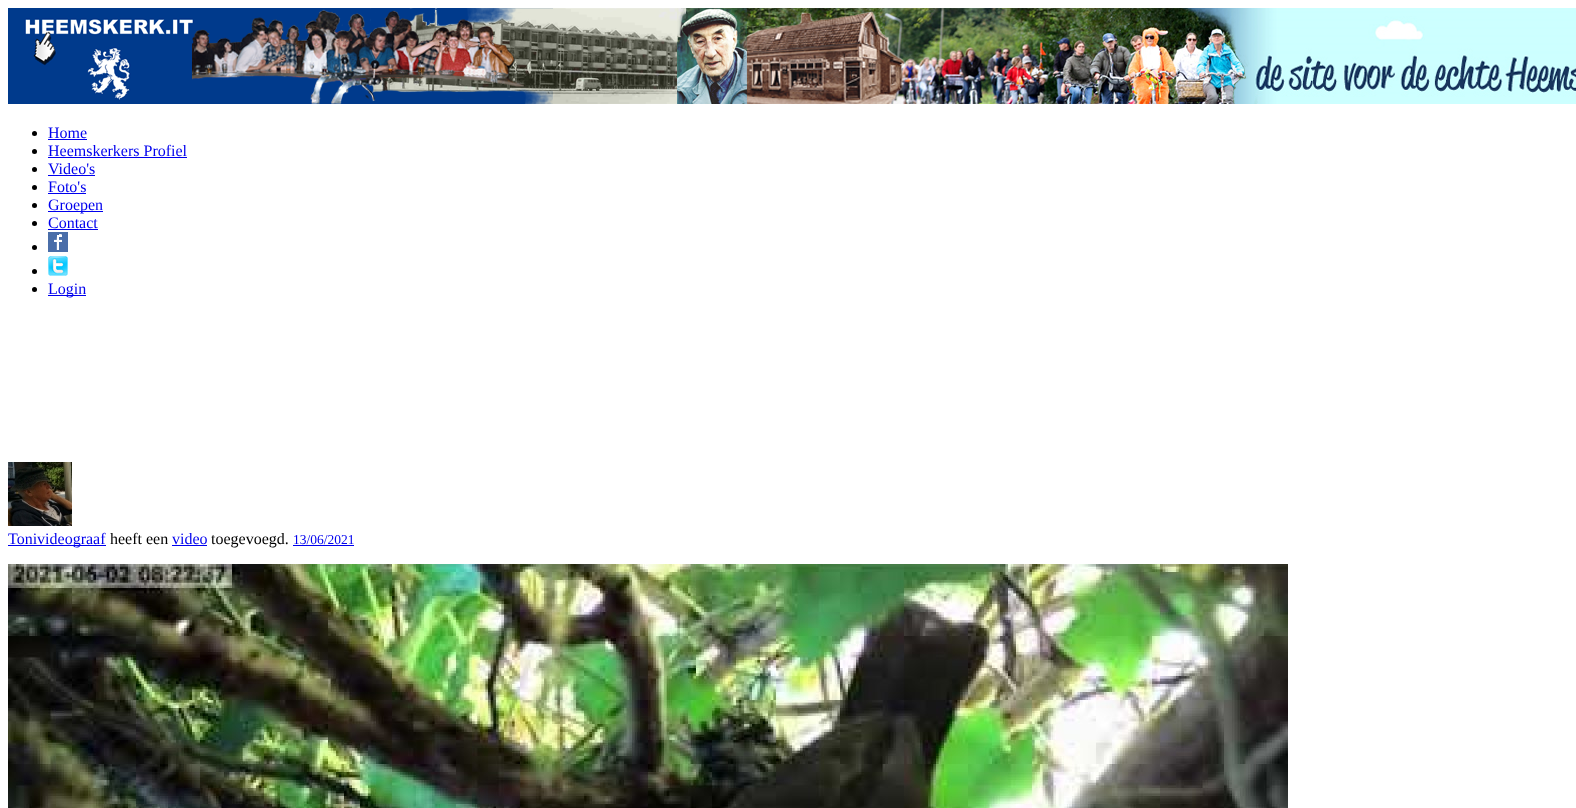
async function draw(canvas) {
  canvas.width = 1576
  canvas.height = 808
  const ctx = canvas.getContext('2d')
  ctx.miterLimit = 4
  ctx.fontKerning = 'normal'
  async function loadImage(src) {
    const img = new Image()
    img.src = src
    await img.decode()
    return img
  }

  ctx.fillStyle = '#fff'
  ctx.fillRect(0, 0, 1576, 808)
  ctx.drawImage(await loadImage('image0.png'), 8, 8, 1568, 96)
  ctx.fillStyle = '#000'
  ctx.beginPath()
  ctx.arc(34.5, 133.5, 2.5, 0, 2 * Math.PI)
  ctx.fill()
  ctx.font = '16px Liberation Serif'
  ctx.fillStyle = '#00e'
  ctx.fillText('Home', 48, 138)
  ctx.fillRect(48, 139, 39, 1)
  ctx.fillStyle = '#000'
  ctx.beginPath()
  ctx.arc(34.5, 151.5, 2.5, 0, 2 * Math.PI)
  ctx.fill()
  ctx.fillStyle = '#00e'
  ctx.fillText('Heemskerkers Profiel', 48, 156)
  ctx.fillRect(48, 157, 139, 1)
  ctx.fillStyle = '#000'
  ctx.beginPath()
  ctx.arc(34.5, 169.5, 2.5, 0, 2 * Math.PI)
  ctx.fill()
  ctx.fillStyle = '#00e'
  ctx.fillText('Video\'s', 48, 174)
  ctx.fillRect(48, 175, 47, 1)
  ctx.fillStyle = '#000'
  ctx.beginPath()
  ctx.arc(34.5, 187.5, 2.5, 0, 2 * Math.PI)
  ctx.fill()
  ctx.fillStyle = '#00e'
  ctx.fillText('Foto\'s', 48, 192)
  ctx.fillRect(48, 193, 38, 1)
  ctx.fillStyle = '#000'
  ctx.beginPath()
  ctx.arc(34.5, 205.5, 2.5, 0, 2 * Math.PI)
  ctx.fill()
  ctx.fillStyle = '#00e'
  ctx.fillRect(48, 211, 55, 1)
  ctx.fillText('Groepen', 48, 210)
  ctx.fillStyle = '#000'
  ctx.beginPath()
  ctx.arc(34.5, 223.5, 2.5, 0, 2 * Math.PI)
  ctx.fill()
  ctx.fillStyle = '#00e'
  ctx.fillText('Contact', 48, 228)
  ctx.fillRect(48, 229, 50, 1)
  ctx.fillStyle = '#000'
  ctx.beginPath()
  ctx.arc(34.5, 247.5, 2.5, 0, 2 * Math.PI)
  ctx.fill()
  ctx.drawImage(await loadImage('image1.png'), 48, 232, 20, 20)
  ctx.beginPath()
  ctx.arc(34.5, 271.5, 2.5, 0, 2 * Math.PI)
  ctx.fill()
  ctx.drawImage(await loadImage('image2.png'), 48, 256, 20, 20)
  ctx.beginPath()
  ctx.arc(34.5, 289.5, 2.5, 0, 2 * Math.PI)
  ctx.fill()
  ctx.fillStyle = '#00e'
  ctx.fillRect(48, 295, 38, 1)
  ctx.fillText('Login', 48, 294)
  ctx.drawImage(await loadImage('image3.png'), 8, 462, 64, 64)
  ctx.fillRect(8, 545, 98, 1)
  ctx.fillText('Tonivideograaf', 8, 544)
  ctx.fillStyle = '#000'
  ctx.fillText('heeft een', 110, 544)
  ctx.fillStyle = '#00e'
  ctx.fillText('video', 172, 544)
  ctx.fillRect(172, 545, 35, 1)
  ctx.fillStyle = '#000'
  ctx.fillText('toegevoegd.', 211, 544)
  ctx.font = '13.5px Liberation Serif'
  ctx.fillStyle = '#00e'
  ctx.fillText('13/06/2021', 293, 544)
  ctx.fillRect(293, 545, 61, 1)
  ctx.drawImage(await loadImage('image4.png'), 8, 564, 1280, 244)
}

draw(document.querySelector('canvas'))
